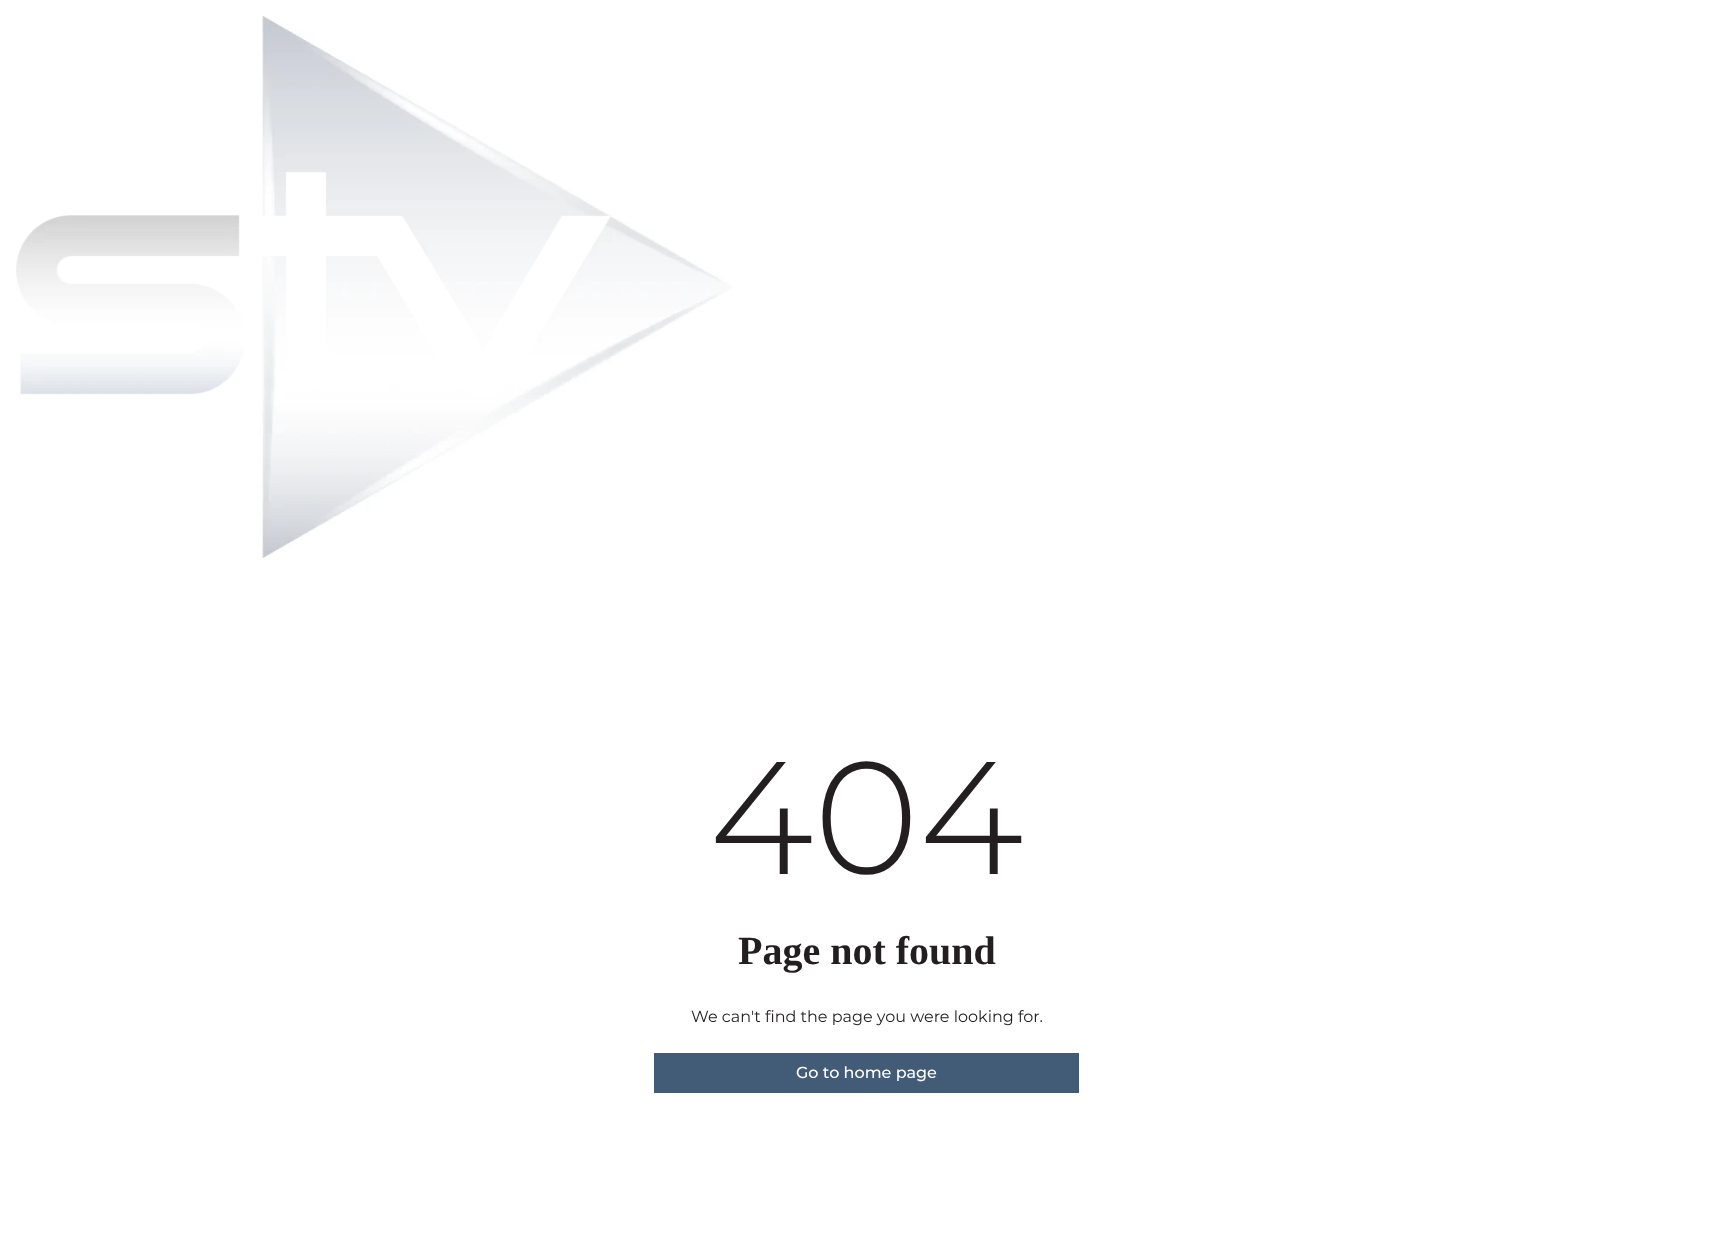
async function draw(canvas) {
  canvas.width = 1733
  canvas.height = 1256
  const ctx = canvas.getContext('2d')
  ctx.miterLimit = 4
  ctx.fontKerning = 'normal'
  async function loadImage(src) {
    const img = new Image()
    img.src = src
    await img.decode()
    return img
  }

  ctx.fillStyle = '#fff'
  ctx.fillRect(0, 0, 1733, 1256)
  ctx.drawImage(await loadImage('image0.png'), 16, 16, 716, 542)
  ctx.font = '300 160px Montserrat'
  ctx.fillStyle = '#231f20'
  ctx.fillText('404', 709, 874)
  ctx.font = 'bold 40px Liberation Serif'
  ctx.fillText('Page not found', 738, 964)
  ctx.font = '16px Montserrat'
  ctx.fillText('We can\'t find the page you were looking for.', 691, 1022)
  ctx.fillStyle = '#425b76'
  ctx.fillRect(654, 1053, 425, 40)
  ctx.font = '500 16px Montserrat'
  ctx.fillStyle = '#fff'
  ctx.fillText('Go to home page', 796, 1078)
}

draw(document.querySelector('canvas'))
